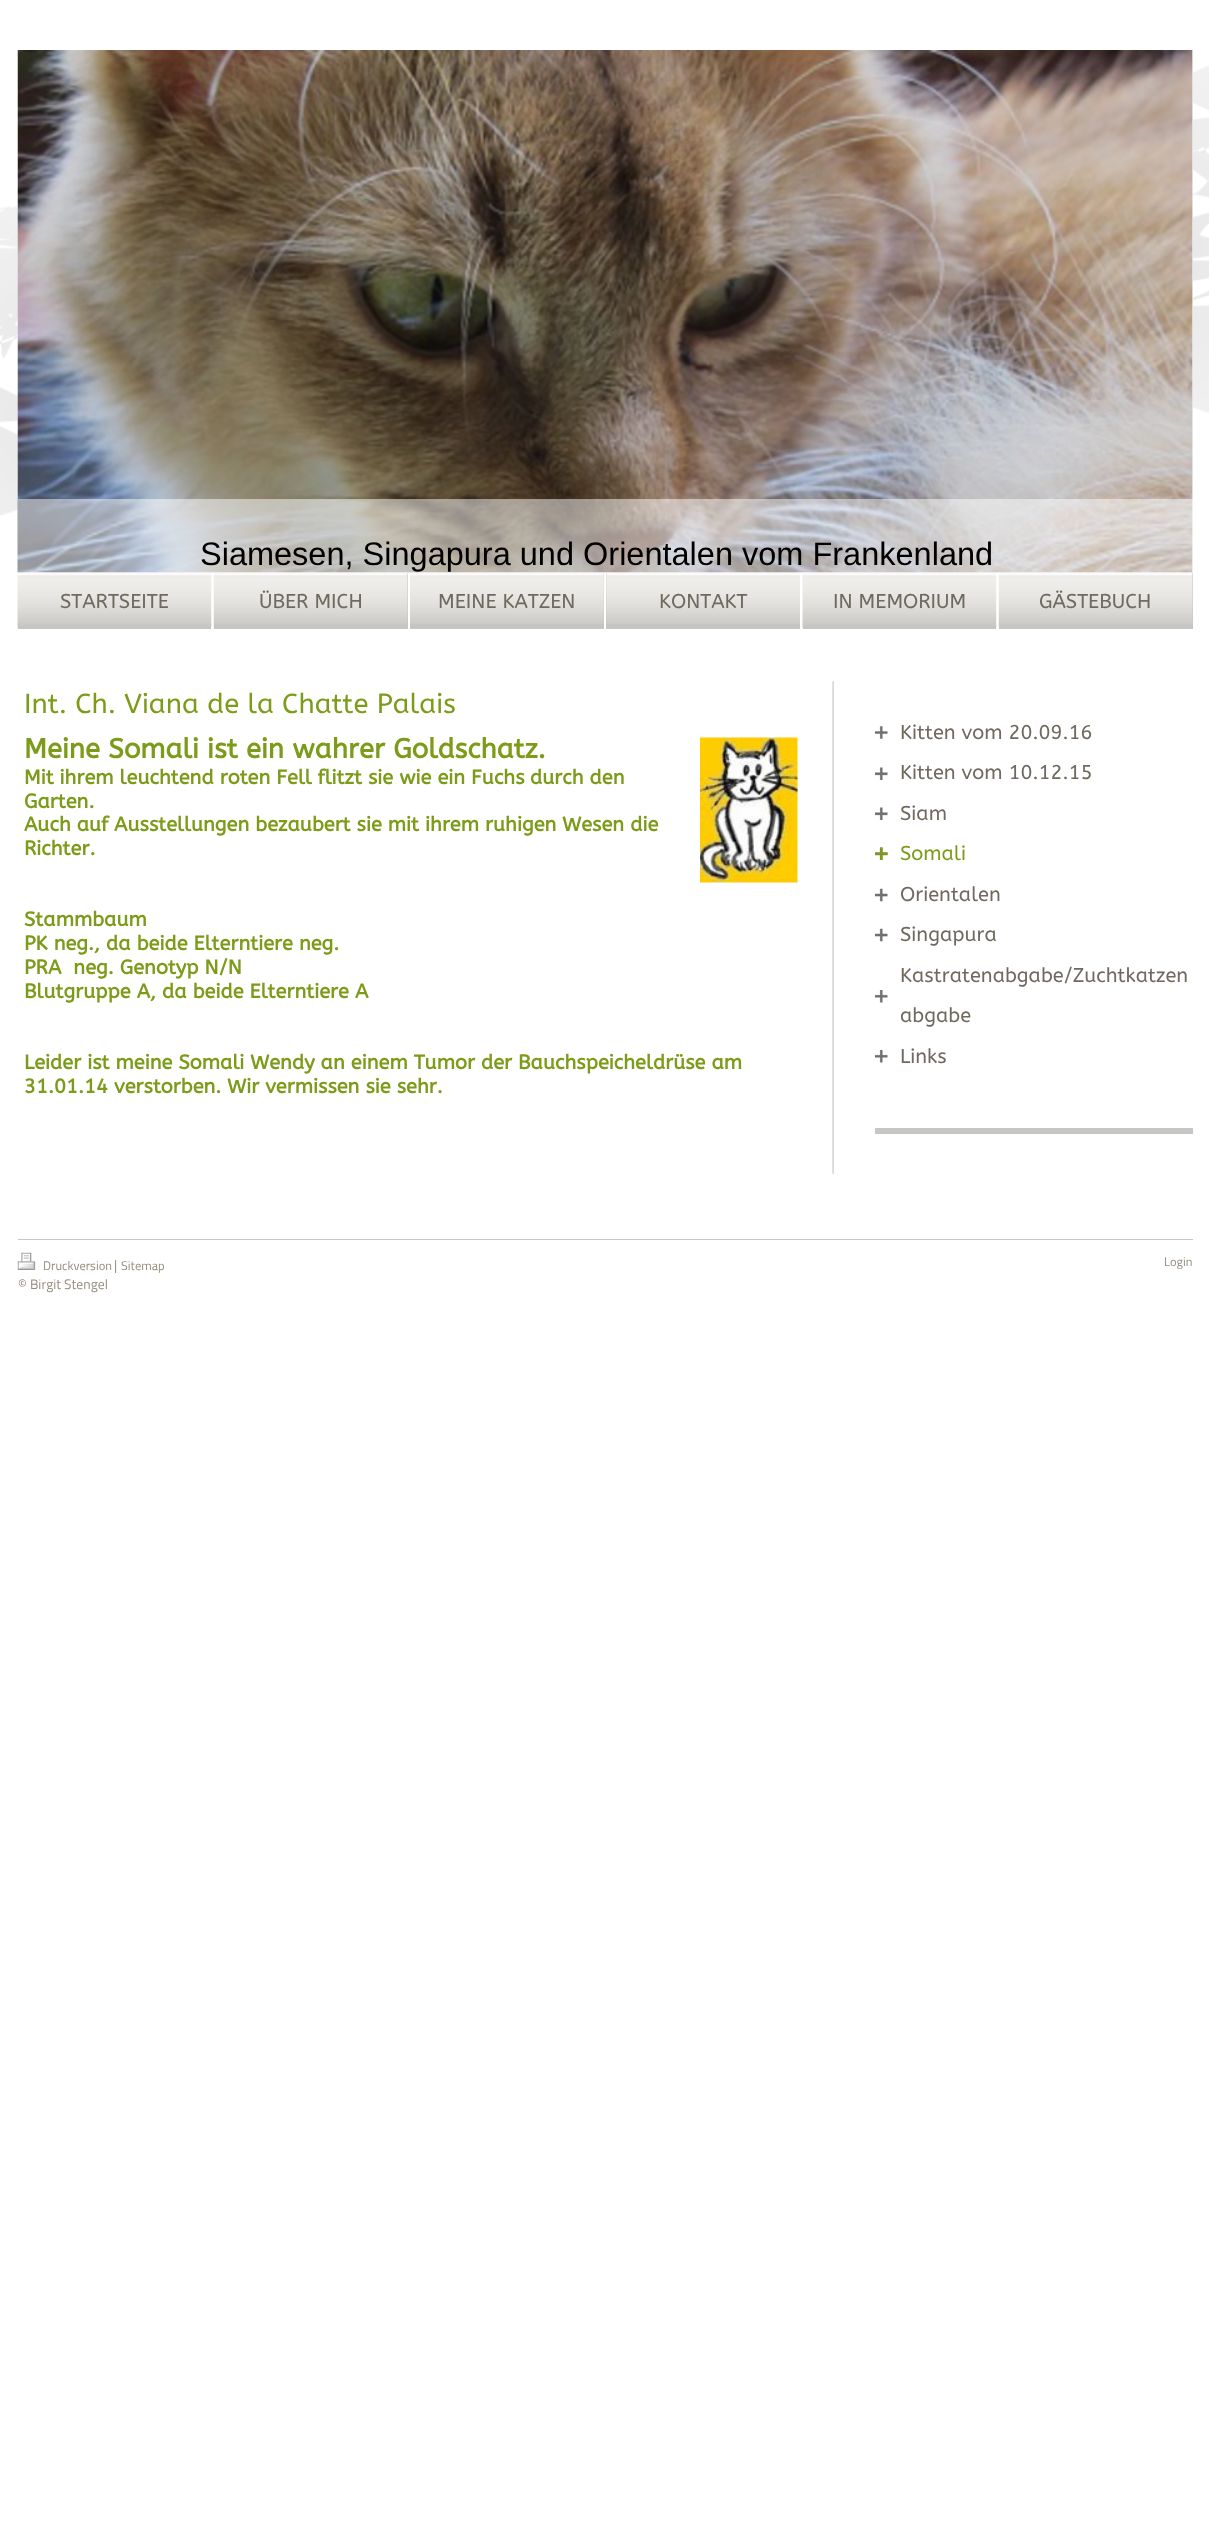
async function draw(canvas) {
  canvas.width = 1209
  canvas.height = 2542
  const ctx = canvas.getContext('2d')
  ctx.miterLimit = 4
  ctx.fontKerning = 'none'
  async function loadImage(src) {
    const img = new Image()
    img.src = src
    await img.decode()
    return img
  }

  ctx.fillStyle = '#fff'
  ctx.fillRect(0, 0, 1209, 2542)
  ctx.drawImage(await loadImage('image0.png'), 0, 49, 1209, 467)
  ctx.fillStyle = '#c6c5c1'
  ctx.fillRect(18, 627, 193, 2)
  ctx.drawImage(await loadImage('image2.png'), 17, 572, 195, 56)
  ctx.fillStyle = '#eee'
  ctx.fillRect(18, 50, 1175, 523)
  ctx.drawImage(await loadImage('image1.png'), 17, 50, 1176, 523)
  ctx.fillStyle = '#ffffff80'
  ctx.fillRect(18, 499, 1175, 74)
  ctx.font = '32.5px Liberation Sans'
  ctx.fillStyle = '#000'
  ctx.fillText('Siamesen, Singapura und Orientalen vom Frankenland', 200, 565)
  ctx.font = '20px ABeeZee'
  ctx.fillStyle = '#706a5e'
  ctx.fillText('STARTSEITE', 60, 608)
  ctx.fillStyle = '#c6c5c1'
  ctx.fillRect(214, 573, 194, 56)
  ctx.drawImage(await loadImage('image3.png'), 213, 573, 195, 55)
  ctx.fillStyle = '#706a5e'
  ctx.fillText('ÜBER MICH', 259, 608)
  ctx.fillStyle = '#c6c5c1'
  ctx.fillRect(410, 573, 194, 56)
  ctx.drawImage(await loadImage('image4.png'), 410, 573, 194, 51)
  ctx.fillStyle = '#706a5e'
  ctx.fillText('MEINE KATZEN', 438, 608)
  ctx.fillStyle = '#c6c5c1'
  ctx.fillRect(606, 573, 194, 56)
  ctx.drawImage(await loadImage('image5.png'), 606, 573, 194, 51)
  ctx.fillStyle = '#706a5e'
  ctx.fillText('KONTAKT', 659, 608)
  ctx.fillStyle = '#c6c5c1'
  ctx.fillRect(803, 627, 193, 2)
  ctx.drawImage(await loadImage('image6.png'), 802, 573, 195, 55)
  ctx.fillStyle = '#706a5e'
  ctx.fillText('IN MEMORIUM', 833, 608)
  ctx.fillStyle = '#c6c5c1'
  ctx.fillRect(999, 573, 194, 56)
  ctx.drawImage(await loadImage('image3.png'), 998, 573, 195, 55)
  ctx.fillStyle = '#706a5e'
  ctx.fillText('GÄSTEBUCH', 1039, 608)
  ctx.drawImage(await loadImage('image7.png'), 832, 681, 2, 493)
  ctx.font = '27.5px ABeeZee'
  ctx.fillStyle = '#7c9c19'
  ctx.fillText('Int. Ch. Viana de la Chatte Palais', 24, 713)
  ctx.font = 'bold 27.5px ABeeZee'
  ctx.fillText('Meine Somali ist ein wahrer Goldschatz.', 24, 758)
  ctx.font = 'bold 20px ABeeZee'
  ctx.fillText('Mit ihrem leuchtend roten Fell flitzt sie wie ein Fuchs', 24, 784)
  ctx.fillText('durch den', 530, 784)
  ctx.fillText('Garten.', 24, 808)
  ctx.fillText('Auch auf Ausstellungen bezaubert sie mit ihrem ruhigen Wesen die', 24, 831)
  ctx.fillText('Richter.', 24, 855)
  ctx.fillText('Stammbaum', 24, 926)
  ctx.fillText('PK neg., da beide Elterntiere neg.', 24, 950)
  ctx.fillText('PRA  neg. Genotyp N/N', 24, 974)
  ctx.fillText('Blutgruppe A, da beide Elterntiere A', 24, 998)
  ctx.fillText('Leider ist meine Somali Wendy an einem Tumor der Bauchspeicheldrüse am', 24, 1069)
  ctx.fillText('31.01.14 verstorben. Wir vermissen sie sehr.', 24, 1093)
  ctx.drawImage(await loadImage('image8.png'), 700, 737, 98, 146)
  ctx.fillStyle = '#c7c6c3'
  ctx.fillRect(875, 1128, 318, 6)
  ctx.drawImage(await loadImage('image9.png'), 875, 726, 13, 13)
  ctx.font = '20px ABeeZee'
  ctx.fillStyle = '#706a5e'
  ctx.fillText('Kitten vom 20.09.16', 900, 739)
  ctx.drawImage(await loadImage('image10.png'), 875, 767, 13, 13)
  ctx.fillText('Kitten vom 10.12.15', 900, 779)
  ctx.drawImage(await loadImage('image10.png'), 875, 807, 13, 13)
  ctx.fillText('Siam', 900, 820)
  ctx.drawImage(await loadImage('image10.png'), 875, 847, 13, 13)
  ctx.drawImage(await loadImage('image11.png'), 875, 847, 13, 13)
  ctx.fillStyle = '#7c9c19'
  ctx.fillText('Somali', 900, 860)
  ctx.drawImage(await loadImage('image12.png'), 875, 888, 13, 14)
  ctx.fillStyle = '#706a5e'
  ctx.fillText('Orientalen', 900, 901)
  ctx.drawImage(await loadImage('image12.png'), 875, 928, 13, 14)
  ctx.fillText('Singapura', 900, 941)
  ctx.drawImage(await loadImage('image13.png'), 875, 990, 13, 13)
  ctx.fillText('Kastratenabgabe/Zuchtkatzen', 900, 982)
  ctx.fillText('abgabe', 900, 1022)
  ctx.drawImage(await loadImage('image13.png'), 875, 1050, 13, 13)
  ctx.fillText('Links', 900, 1063)
  ctx.fillStyle = '#c7c6c3'
  ctx.fillRect(18, 1239, 1175, 1)
  ctx.drawImage(await loadImage('image14.png'), 17, 1252, 19, 18)
  ctx.font = '12.5px Titillium Web'
  ctx.fillStyle = '#958e7e'
  ctx.fillText('Druckversion', 43, 1270)
  ctx.font = '13.75px Titillium Web'
  ctx.fillText('|', 114, 1270)
  ctx.font = '12.5px Titillium Web'
  ctx.fillText('Sitemap', 121, 1270)
  ctx.font = '13.75px Titillium Web'
  ctx.fillText('© Birgit Stengel', 18, 1289)
  ctx.font = '12.5px Titillium Web'
  ctx.fillText('Login', 1164, 1266)
}

draw(document.querySelector('canvas'))
